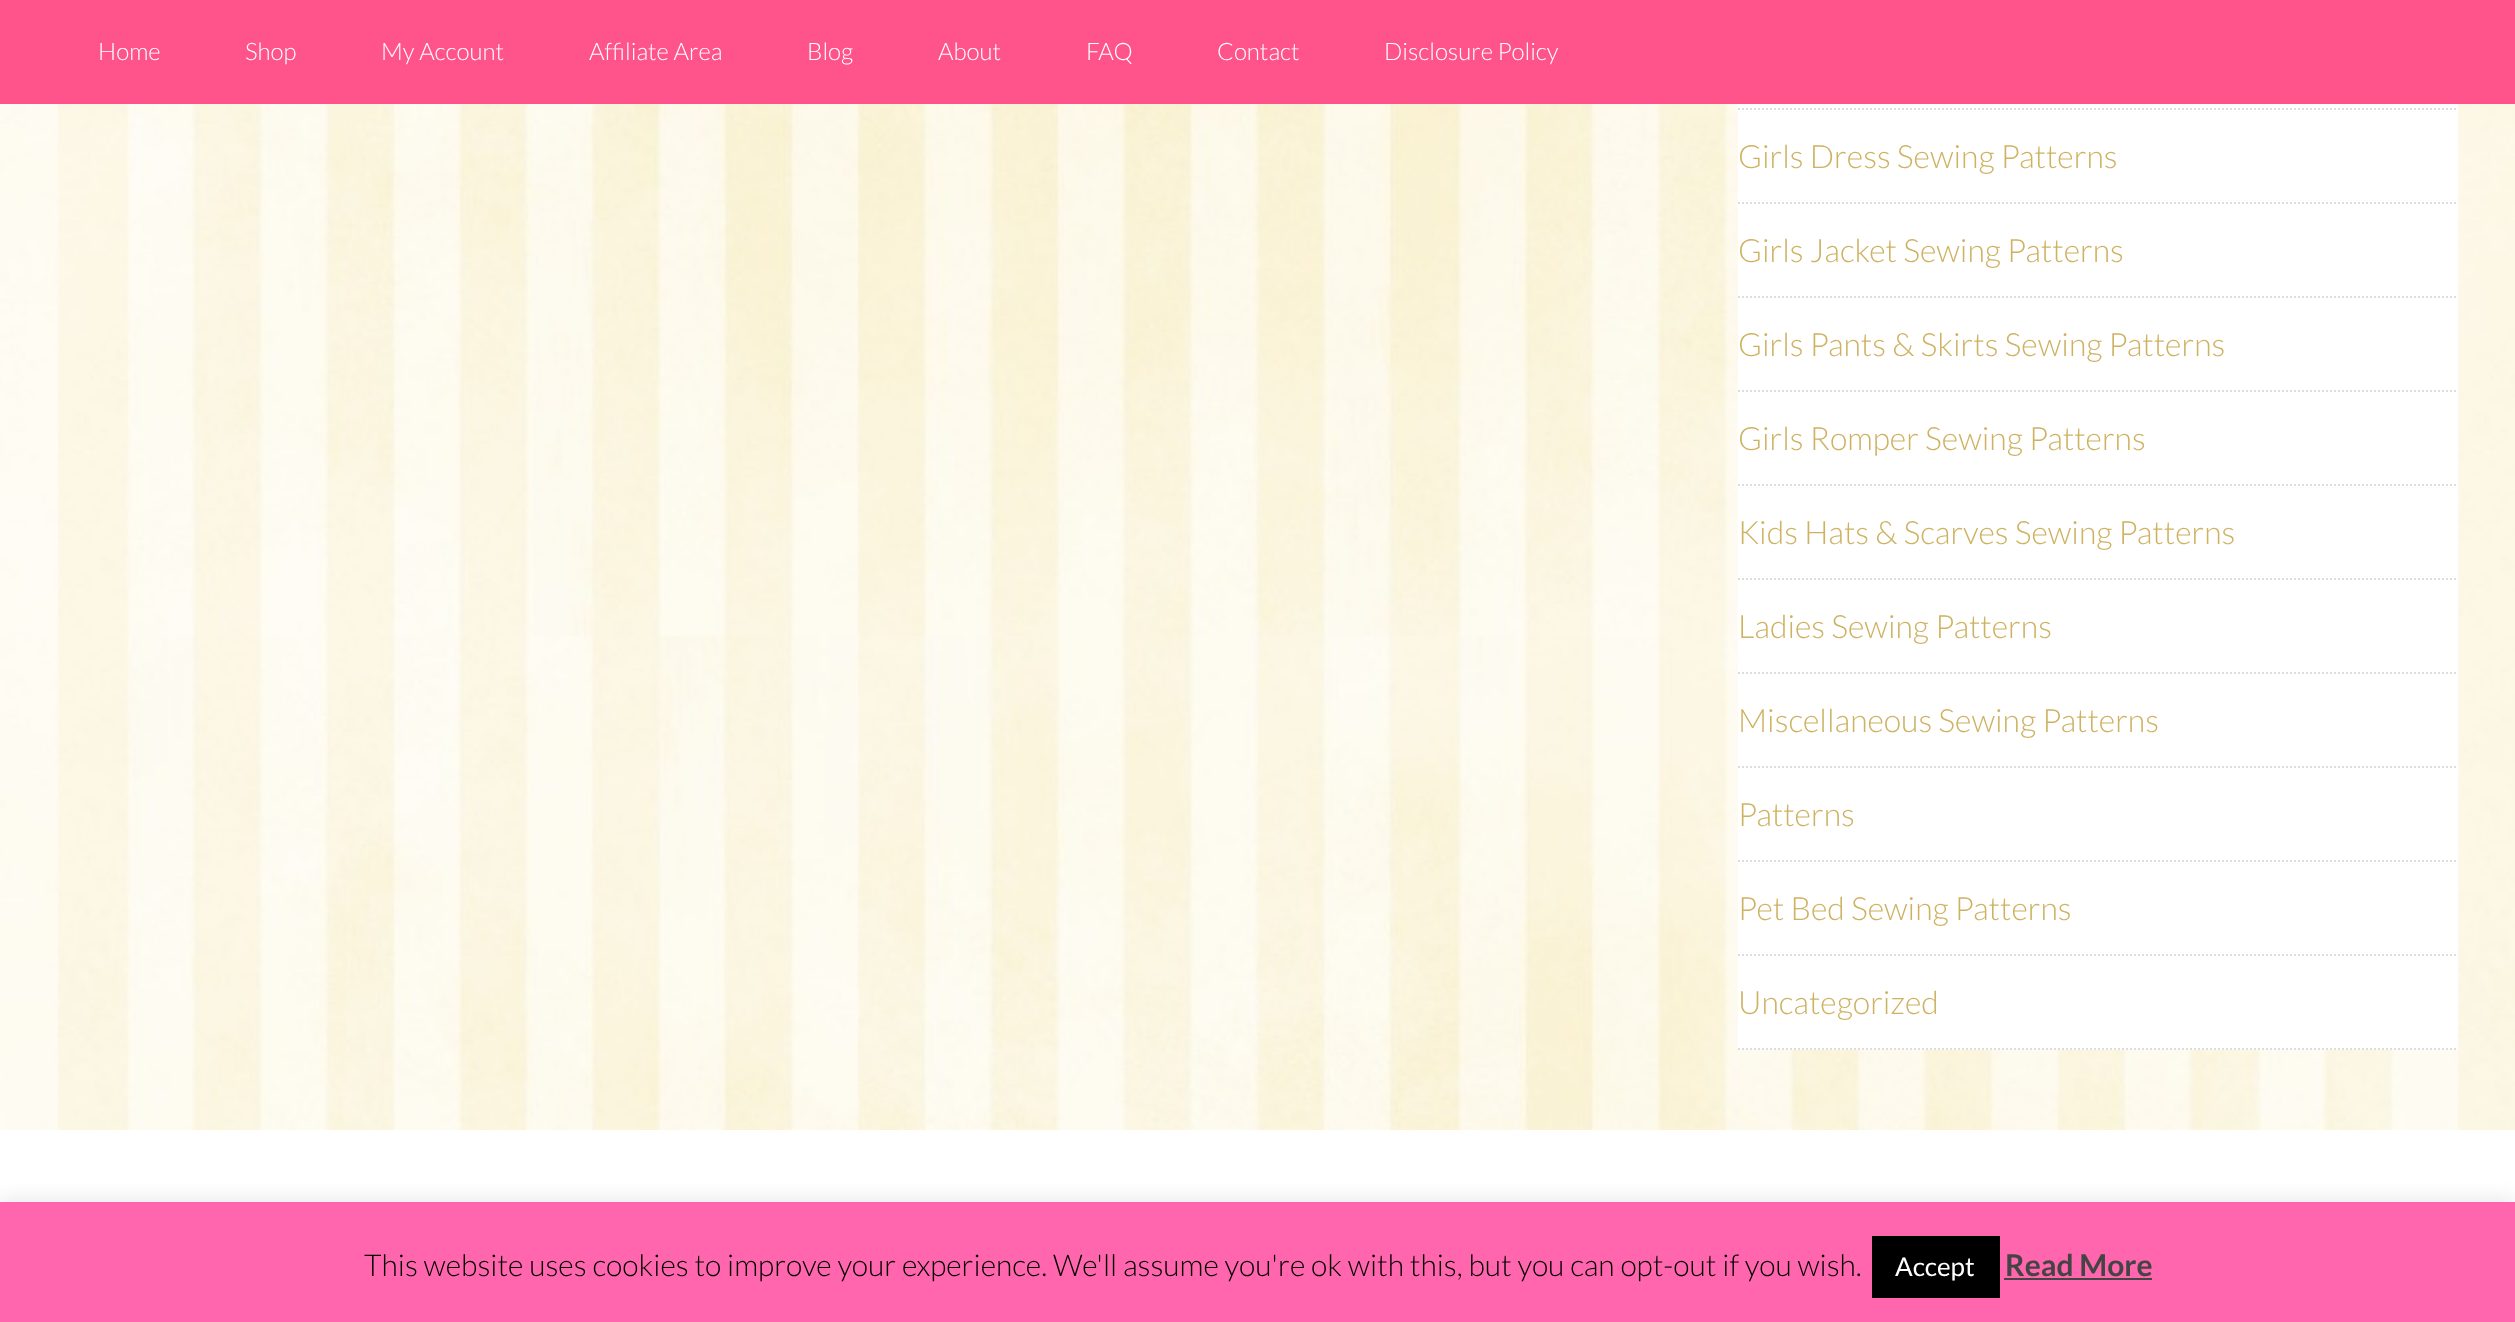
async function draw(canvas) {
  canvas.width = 2515
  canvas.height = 1322
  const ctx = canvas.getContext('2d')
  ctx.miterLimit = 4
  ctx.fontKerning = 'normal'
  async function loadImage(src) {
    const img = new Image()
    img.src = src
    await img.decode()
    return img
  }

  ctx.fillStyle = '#fff'
  ctx.fillRect(0, 0, 2515, 1322)
  ctx.drawImage(await loadImage('image0.png'), 0, 104, 2515, 1026)
  ctx.fillStyle = '#ff538c'
  ctx.fillRect(0, 0, 2515, 104)
  ctx.font = '300 24px Lato'
  ctx.fillStyle = '#fff'
  ctx.fillText('Home', 98, 60)
  ctx.fillText('Shop', 245, 60)
  ctx.fillText('My Account', 381, 60)
  ctx.fillText('Affiliate Area', 589, 60)
  ctx.fillText('Blog', 807, 60)
  ctx.fillText('About', 938, 60)
  ctx.fillText('FAQ', 1086, 60)
  ctx.fillText('Contact', 1217, 60)
  ctx.fillText('Disclosure Policy', 1384, 60)
  ctx.fillRect(1738, 104, 720, 946)
  ctx.beginPath()
  ctx.moveTo(1738, 109)
  ctx.lineTo(2458, 109)
  ctx.strokeStyle = '#ddd'
  ctx.lineWidth = 2
  ctx.setLineDash([2, 2])
  ctx.stroke()
  ctx.beginPath()
  ctx.moveTo(1738, 203)
  ctx.lineTo(2458, 203)
  ctx.stroke()
  ctx.font = '300 32px Lato'
  ctx.fillStyle = '#ceb262'
  ctx.fillText('Girls Dress Sewing Patterns', 1738, 168)
  ctx.beginPath()
  ctx.moveTo(1738, 297)
  ctx.lineTo(2458, 297)
  ctx.stroke()
  ctx.fillText('Girls Jacket Sewing Patterns', 1738, 262)
  ctx.beginPath()
  ctx.moveTo(1738, 391)
  ctx.lineTo(2458, 391)
  ctx.stroke()
  ctx.fillText('Girls Pants & Skirts Sewing Patterns', 1738, 356)
  ctx.beginPath()
  ctx.moveTo(1738, 485)
  ctx.lineTo(2458, 485)
  ctx.stroke()
  ctx.fillText('Girls Romper Sewing Patterns', 1738, 450)
  ctx.beginPath()
  ctx.moveTo(1738, 579)
  ctx.lineTo(2458, 579)
  ctx.stroke()
  ctx.fillText('Kids Hats & Scarves Sewing Patterns', 1738, 544)
  ctx.beginPath()
  ctx.moveTo(1738, 673)
  ctx.lineTo(2458, 673)
  ctx.stroke()
  ctx.fillText('Ladies Sewing Patterns', 1738, 638)
  ctx.beginPath()
  ctx.moveTo(1738, 767)
  ctx.lineTo(2458, 767)
  ctx.stroke()
  ctx.fillText('Miscellaneous Sewing Patterns', 1738, 732)
  ctx.beginPath()
  ctx.moveTo(1738, 861)
  ctx.lineTo(2458, 861)
  ctx.stroke()
  ctx.fillText('Patterns', 1738, 826)
  ctx.beginPath()
  ctx.moveTo(1738, 955)
  ctx.lineTo(2458, 955)
  ctx.stroke()
  ctx.fillText('Pet Bed Sewing Patterns', 1738, 920)
  ctx.beginPath()
  ctx.moveTo(1738, 1049)
  ctx.lineTo(2458, 1049)
  ctx.stroke()
  ctx.fillText('Uncategorized', 1738, 1014)
  ctx.fillStyle = '#acabab4d'
  ctx.filter = 'blur(10px)'
  ctx.beginPath()
  ctx.rect(0, 1200, 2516, 120)
  ctx.fill()
  ctx.filter = 'none'
  ctx.fillStyle = '#ff66ad'
  ctx.fillRect(0, 1202, 2515, 120)
  ctx.font = '300 30px Lato'
  ctx.fillStyle = '#000'
  ctx.fillText('This website uses cookies to improve your experience. We\'ll assume you\'re ok with this, but you can opt-out if you wish.', 364, 1276)
  ctx.fillRect(1872, 1236, 128, 62)
  ctx.font = '26px Lato'
  ctx.fillStyle = '#fff'
  ctx.fillText('Accept', 1895, 1276)
  ctx.font = 'bold 30px Lato'
  ctx.fillStyle = '#444'
  ctx.fillText('Read More', 2005, 1276)
  ctx.fillRect(2004, 1278, 148, 2)
}

draw(document.querySelector('canvas'))
